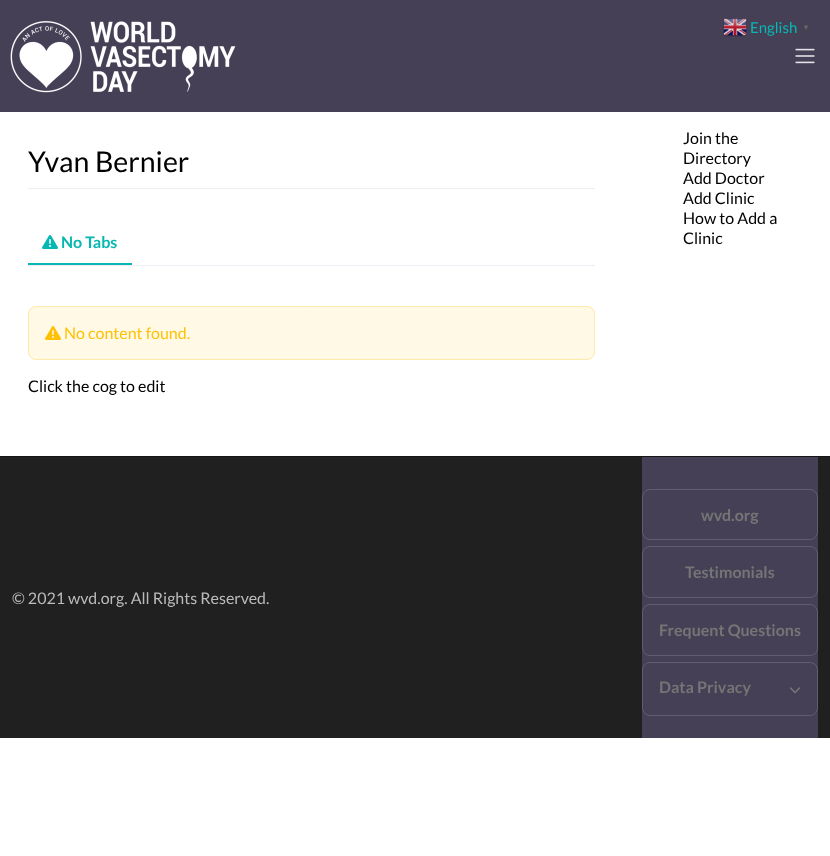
async function draw(canvas) {
  canvas.width = 830
  canvas.height = 856
  const ctx = canvas.getContext('2d')
  ctx.miterLimit = 4
  ctx.fontKerning = 'normal'
  async function loadImage(src) {
    const img = new Image()
    img.src = src
    await img.decode()
    return img
  }

  ctx.fillStyle = '#fff'
  ctx.fillRect(0, 0, 830, 856)
  ctx.fillStyle = '#454056'
  ctx.fillRect(0, 0, 830, 112)
  ctx.drawImage(await loadImage('image0.png'), 10, 21, 226, 72)
  ctx.drawImage(await loadImage('image1.png'), 795, 48, 20, 16)
  ctx.drawImage(await loadImage('image2.png'), 723, 18, 24, 19)
  ctx.font = '15px Lato'
  ctx.fillStyle = '#07b8b2'
  ctx.fillText('English', 750, 33)
  ctx.font = 'bold 8px Liberation Sans'
  ctx.fillStyle = '#666'
  ctx.fillText('▼', 802, 30)
  ctx.fillStyle = '#efecf3'
  ctx.fillRect(28, 188, 567, 1)
  ctx.font = '28.5px Lato'
  ctx.fillStyle = '#000'
  ctx.fillText('Yvan Bernier', 28, 172)
  ctx.fillStyle = '#efecf3'
  ctx.fillRect(28, 265, 567, 1)
  ctx.fillStyle = '#07b8b2'
  ctx.fillRect(28, 263, 104, 2)
  ctx.drawImage(await loadImage('image3.png'), 42, 235, 16, 14)
  ctx.font = 'bold 16px Lato'
  ctx.fillText('No Tabs', 61, 248)
  ctx.fillStyle = '#fff9e6'
  ctx.beginPath()
  ctx.roundRect(28.5, 306.5, 566, 53, 7.5)
  ctx.fill()
  ctx.strokeStyle = '#ffe9a8'
  ctx.stroke()
  ctx.drawImage(await loadImage('image4.png'), 45, 326, 16, 14)
  ctx.font = '16px Lato'
  ctx.fillStyle = '#ffc107'
  ctx.fillText('No content found.', 64, 339)
  ctx.fillStyle = '#000'
  ctx.fillText('Click the cog to edit', 28, 392)
  ctx.fillText('Join the', 683, 144)
  ctx.fillText('Directory', 683, 164)
  ctx.fillText('Add Doctor', 683, 184)
  ctx.fillText('Add Clinic', 683, 204)
  ctx.fillText('How to Add a', 683, 224)
  ctx.fillText('Clinic', 683, 244)
  ctx.fillStyle = '#202020'
  ctx.fillRect(0, 457, 830, 281)
  ctx.fillStyle = '#151515'
  ctx.fillRect(0, 456, 830, 1)
  ctx.fillStyle = '#bbb'
  ctx.fillText('© 2021 wvd.org. All Rights Reserved.', 12, 604)
  ctx.fillStyle = '#454056'
  ctx.fillRect(642, 457, 176, 281)
  ctx.beginPath()
  ctx.roundRect(642.5, 489.5, 175, 50, 7.5)
  ctx.strokeStyle = '#615d6f'
  ctx.stroke()
  ctx.font = 'bold 16px Lato'
  ctx.fillStyle = '#757575'
  ctx.fillText('wvd.org', 701, 521)
  ctx.beginPath()
  ctx.roundRect(642.5, 546.5, 175, 51, 7.5)
  ctx.stroke()
  ctx.fillText('Testimonials', 685, 578)
  ctx.beginPath()
  ctx.roundRect(642.5, 604.5, 175, 51, 7.5)
  ctx.stroke()
  ctx.fillText('Frequent Questions', 659, 636)
  ctx.beginPath()
  ctx.roundRect(642.5, 662.5, 175, 53, 7.5)
  ctx.stroke()
  ctx.fillText('Data Privacy', 659, 693)
  ctx.drawImage(await loadImage('image5.png'), 789, 687, 12, 7)
}

draw(document.querySelector('canvas'))
